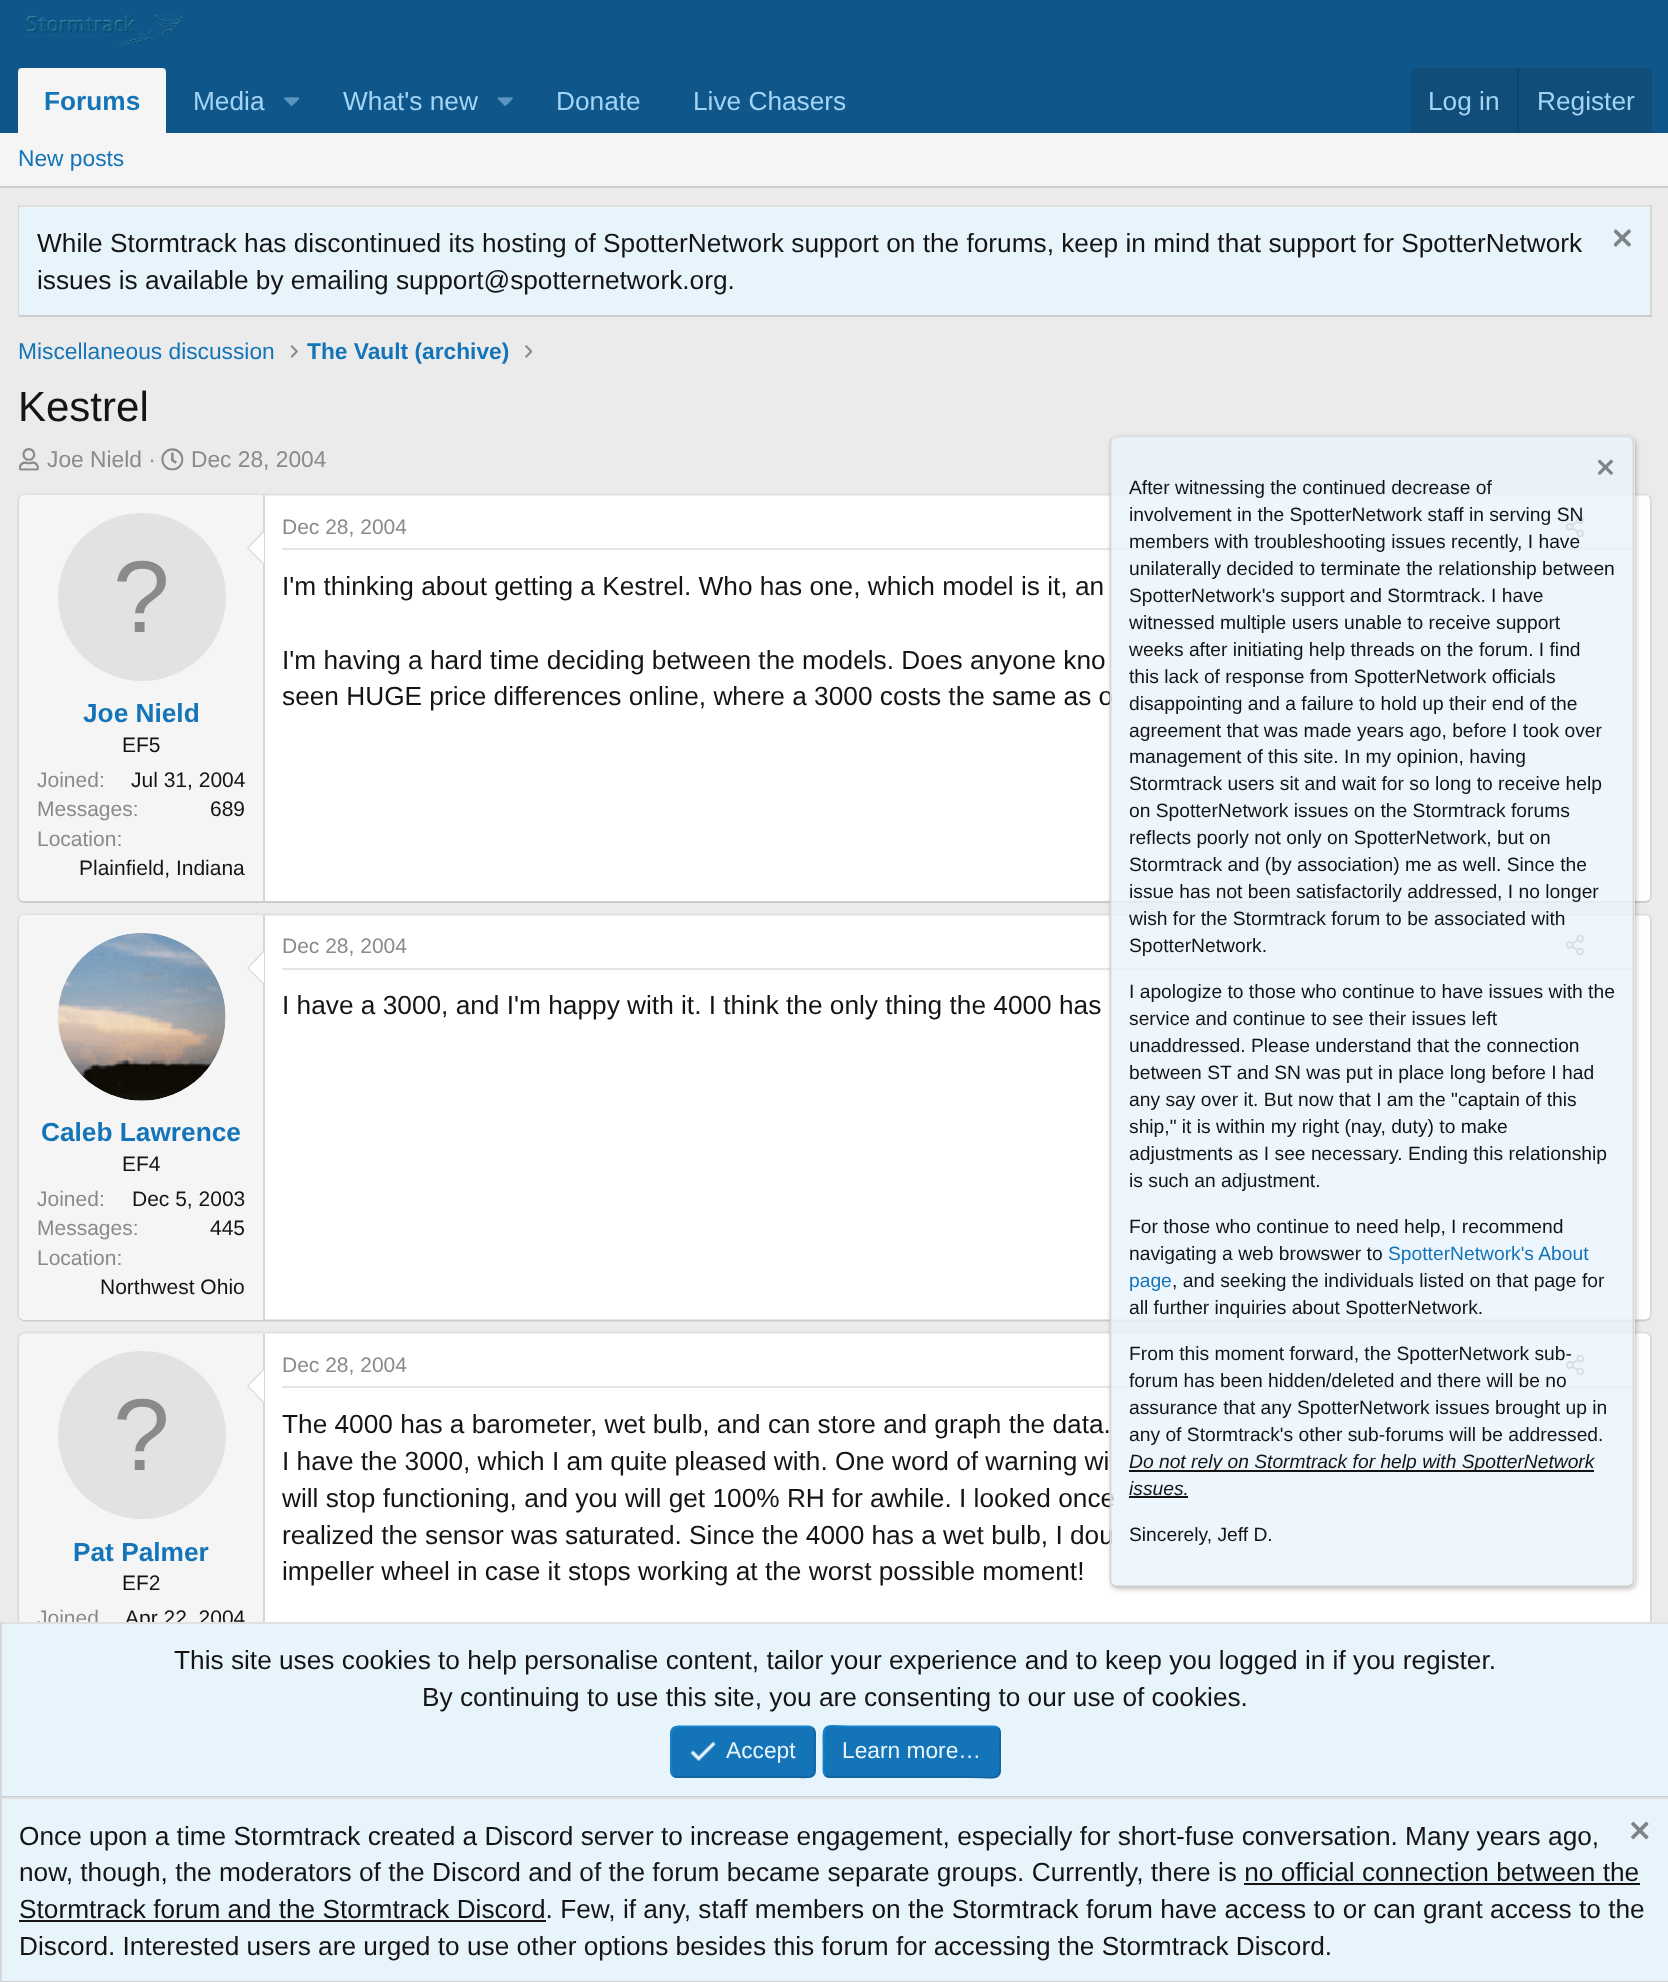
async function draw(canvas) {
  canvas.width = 1668
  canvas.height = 1982
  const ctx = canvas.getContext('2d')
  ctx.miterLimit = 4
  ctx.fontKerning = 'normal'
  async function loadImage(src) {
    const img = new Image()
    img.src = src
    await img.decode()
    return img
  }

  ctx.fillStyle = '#ebebeb'
  ctx.fillRect(0, 0, 1668, 1982)
  ctx.fillStyle = '#0f578a'
  ctx.fillRect(0, 0, 1668, 133)
  ctx.drawImage(await loadImage('image0.png'), 26, 13, 157, 35)
  ctx.fillStyle = '#f5f5f5'
  ctx.beginPath()
  ctx.roundRect(18, 68, 148, 65, [4, 4, 0, 0])
  ctx.fill()
  ctx.font = 'bold 26.25px Liberation Sans'
  ctx.fillStyle = '#1474b8'
  ctx.fillText('Forums', 44, 110)
  ctx.font = '26.25px Liberation Sans'
  ctx.fillStyle = '#a3d4f5'
  ctx.fillText('Media', 193, 110)
  ctx.drawImage(await loadImage('image1.png'), 284, 97, 15, 9)
  ctx.fillText('What\'s new', 343, 110)
  ctx.drawImage(await loadImage('image2.png'), 497, 97, 16, 9)
  ctx.fillText('Donate', 556, 110)
  ctx.fillText('Live Chasers', 693, 110)
  ctx.fillStyle = '#104d78'
  ctx.beginPath()
  ctx.roundRect(1411, 68, 241, 65, [7, 7, 0, 0])
  ctx.fill()
  ctx.fillStyle = '#a3d4f5'
  ctx.fillText('Log in', 1428, 110)
  ctx.fillStyle = '#114469'
  ctx.fillRect(1517, 68, 2, 65)
  ctx.fillStyle = '#a3d4f5'
  ctx.fillText('Register', 1537, 110)
  ctx.fillStyle = '#f5f5f5'
  ctx.fillRect(0, 133, 1668, 53)
  ctx.fillStyle = '#ccc'
  ctx.fillRect(0, 186, 1668, 2)
  ctx.font = '22.75px Liberation Sans'
  ctx.fillStyle = '#1474b8'
  ctx.fillText('New posts', 18, 166)
  ctx.fillStyle = '#e0e0e0'
  ctx.fillRect(18, 205, 1634, 2)
  ctx.fillStyle = '#d6d6d6'
  ctx.fillRect(1650, 205, 2, 112)
  ctx.fillStyle = '#ccc'
  ctx.fillRect(18, 315, 1634, 2)
  ctx.fillStyle = '#d6d6d6'
  ctx.fillRect(18, 205, 2, 112)
  ctx.fillStyle = '#e8f4fc'
  ctx.fillRect(19, 207, 1631, 108)
  ctx.font = '26.25px Liberation Sans'
  ctx.fillStyle = '#141414'
  ctx.fillText('While Stormtrack has discontinued its hosting of SpotterNetwork support on the forums, keep in mind that support for SpotterNetwork', 37, 252)
  ctx.drawImage(await loadImage('image3.png'), 1614, 229, 17, 18)
  ctx.fillText('issues is available by emailing support@spotternetwork.org.', 37, 289)
  ctx.font = '22.75px Liberation Sans'
  ctx.fillStyle = '#1474b8'
  ctx.fillText('Miscellaneous discussion', 18, 359)
  ctx.drawImage(await loadImage('image4.png'), 291, 345, 7, 13)
  ctx.font = 'bold 22.75px Liberation Sans'
  ctx.fillText('The Vault (archive)', 307, 359)
  ctx.drawImage(await loadImage('image5.png'), 525, 345, 7, 13)
  ctx.font = '42px Liberation Sans'
  ctx.fillStyle = '#141414'
  ctx.fillText('Kestrel', 18, 421)
  ctx.drawImage(await loadImage('image6.png'), 18, 448, 21, 23)
  ctx.font = '22.75px Liberation Sans'
  ctx.fillStyle = '#8a8a8a'
  ctx.fillText('Joe Nield ·', 47, 467)
  ctx.drawImage(await loadImage('image7.png'), 161, 448, 23, 23)
  ctx.fillText('Dec 28, 2004', 191, 467)
  ctx.fillStyle = '#fff'
  ctx.beginPath()
  ctx.roundRect(18, 494, 1634, 409, 7)
  ctx.fill()
  ctx.beginPath()
  ctx.moveTo(20, 496)
  ctx.bezierCurveTo(21.5, 495, 23, 494.5, 24.5, 494.5)
  ctx.lineTo(1645, 494.5)
  ctx.bezierCurveTo(1646.5, 494.5, 1648, 495, 1649.5, 496)
  ctx.strokeStyle = '#e0e0e0'
  ctx.lineWidth = 1.8
  ctx.stroke()
  ctx.beginPath()
  ctx.moveTo(1649.5, 496)
  ctx.bezierCurveTo(1650.5, 497.5, 1651, 499, 1651, 500.5)
  ctx.lineTo(1651, 896)
  ctx.bezierCurveTo(1651, 897.5, 1650.5, 899, 1649.5, 900.5)
  ctx.strokeStyle = '#d6d6d6'
  ctx.stroke()
  ctx.beginPath()
  ctx.moveTo(1649.5, 900.5)
  ctx.bezierCurveTo(1648, 901.5, 1646.5, 902, 1645, 902)
  ctx.lineTo(24.5, 902)
  ctx.bezierCurveTo(23, 902, 21.5, 901.5, 20, 900.5)
  ctx.strokeStyle = '#ccc'
  ctx.stroke()
  ctx.beginPath()
  ctx.moveTo(20, 900.5)
  ctx.bezierCurveTo(19, 899, 18.5, 897.5, 18.5, 896)
  ctx.lineTo(18.5, 500.5)
  ctx.bezierCurveTo(18.5, 499, 19, 497.5, 20, 496)
  ctx.strokeStyle = '#d6d6d6'
  ctx.stroke()
  ctx.fillStyle = '#f5f5f5'
  ctx.beginPath()
  ctx.roundRect(19, 495, 245, 406, [5, 0, 0, 5])
  ctx.fill()
  ctx.fillStyle = '#d6d6d6'
  ctx.fillRect(263, 495, 2, 406)
  ctx.beginPath()
  ctx.moveTo(264, 530)
  ctx.lineTo(264, 565)
  ctx.lineTo(247, 548)
  ctx.closePath()
  ctx.fill()
  ctx.fillStyle = '#fff'
  ctx.beginPath()
  ctx.moveTo(264, 532)
  ctx.lineTo(264, 563.5)
  ctx.lineTo(248.5, 548)
  ctx.closePath()
  ctx.fill()
  ctx.fillStyle = '#e2e2e2'
  ctx.beginPath()
  ctx.arc(142, 597, 84, 0, 2 * Math.PI)
  ctx.fill()
  ctx.font = '102px Liberation Sans'
  ctx.fillStyle = '#8a8a8a'
  ctx.fillText('?', 113, 632)
  ctx.font = 'bold 26.25px Liberation Sans'
  ctx.fillStyle = '#1474b8'
  ctx.fillText('Joe Nield', 83, 722)
  ctx.font = '21px Liberation Sans'
  ctx.fillStyle = '#141414'
  ctx.fillText('EF5', 122, 752)
  ctx.fillStyle = '#8a8a8a'
  ctx.fillText('Joined:', 37, 787)
  ctx.fillStyle = '#141414'
  ctx.fillText('Jul 31, 2004', 131, 787)
  ctx.fillStyle = '#8a8a8a'
  ctx.fillText('Messages:', 37, 816)
  ctx.fillStyle = '#141414'
  ctx.fillText('689', 210, 816)
  ctx.fillStyle = '#8a8a8a'
  ctx.fillText('Location:', 37, 846)
  ctx.fillStyle = '#141414'
  ctx.fillText('Plainfield, Indiana', 79, 875)
  ctx.fillStyle = '#e5e5e5'
  ctx.fillRect(282, 548, 1351, 2)
  ctx.fillStyle = '#8a8a8a'
  ctx.fillText('Dec 28, 2004', 282, 534)
  ctx.drawImage(await loadImage('image8.png'), 1565, 516, 20, 21)
  ctx.font = '26.25px Liberation Sans'
  ctx.fillStyle = '#141414'
  ctx.fillText('I\'m thinking about getting a Kestrel. Who has one, which model is it, an', 282, 595)
  ctx.fillText('I\'m having a hard time deciding between the models. Does anyone kno', 282, 669)
  ctx.fillText('seen HUGE price differences online, where a 3000 costs the same as o', 282, 705)
  ctx.fillStyle = '#fff'
  ctx.beginPath()
  ctx.roundRect(18, 914, 1634, 407, 7)
  ctx.fill()
  ctx.beginPath()
  ctx.moveTo(20, 916)
  ctx.bezierCurveTo(21.5, 915, 23, 914.5, 24.5, 914.5)
  ctx.lineTo(1645, 914.5)
  ctx.bezierCurveTo(1646.5, 914.5, 1648, 915, 1649.5, 916)
  ctx.strokeStyle = '#e0e0e0'
  ctx.stroke()
  ctx.beginPath()
  ctx.moveTo(1649.5, 916)
  ctx.bezierCurveTo(1650.5, 917.5, 1651, 919, 1651, 920.5)
  ctx.lineTo(1651, 1314)
  ctx.bezierCurveTo(1651, 1316, 1650.5, 1317.5, 1649.5, 1318.5)
  ctx.strokeStyle = '#d6d6d6'
  ctx.stroke()
  ctx.beginPath()
  ctx.moveTo(1649.5, 1318.5)
  ctx.bezierCurveTo(1648, 1319.5, 1646.5, 1320.5, 1645, 1320.5)
  ctx.lineTo(24.5, 1320.5)
  ctx.bezierCurveTo(23, 1320.5, 21.5, 1319.5, 20, 1318.5)
  ctx.strokeStyle = '#ccc'
  ctx.stroke()
  ctx.beginPath()
  ctx.moveTo(20, 1318.5)
  ctx.bezierCurveTo(19, 1317.5, 18.5, 1316, 18.5, 1314)
  ctx.lineTo(18.5, 920.5)
  ctx.bezierCurveTo(18.5, 919, 19, 917.5, 20, 916)
  ctx.strokeStyle = '#d6d6d6'
  ctx.stroke()
  ctx.fillStyle = '#e5e5e5'
  ctx.fillRect(282, 968, 1351, 2)
  ctx.font = '21px Liberation Sans'
  ctx.fillStyle = '#8a8a8a'
  ctx.fillText('Dec 28, 2004', 282, 953)
  ctx.drawImage(await loadImage('image9.png'), 1565, 934, 20, 22)
  ctx.font = '26.25px Liberation Sans'
  ctx.fillStyle = '#141414'
  ctx.fillText('I have a 3000, and I\'m happy with it. I think the only thing the 4000 has', 282, 1014)
  ctx.fillStyle = '#f5f5f5'
  ctx.beginPath()
  ctx.roundRect(19, 915, 245, 405, [5, 0, 0, 5])
  ctx.fill()
  ctx.fillStyle = '#d6d6d6'
  ctx.fillRect(263, 915, 2, 405)
  ctx.fillStyle = '#fff'
  ctx.beginPath()
  ctx.arc(142, 1017, 84, 0, 2 * Math.PI)
  ctx.fill()
  ctx.drawImage(await loadImage('image10.png'), 58, 933, 168, 168)
  ctx.fillStyle = '#d6d6d6'
  ctx.beginPath()
  ctx.moveTo(264, 950)
  ctx.lineTo(264, 985)
  ctx.lineTo(247, 968)
  ctx.closePath()
  ctx.fill()
  ctx.fillStyle = '#fff'
  ctx.beginPath()
  ctx.moveTo(264, 952)
  ctx.lineTo(264, 983.5)
  ctx.lineTo(248.5, 968)
  ctx.closePath()
  ctx.fill()
  ctx.font = 'bold 26.25px Liberation Sans'
  ctx.fillStyle = '#1474b8'
  ctx.fillText('Caleb Lawrence', 41, 1141)
  ctx.font = '21px Liberation Sans'
  ctx.fillStyle = '#141414'
  ctx.fillText('EF4', 122, 1171)
  ctx.fillStyle = '#8a8a8a'
  ctx.fillText('Joined:', 37, 1206)
  ctx.fillStyle = '#141414'
  ctx.fillText('Dec 5, 2003', 132, 1206)
  ctx.fillStyle = '#8a8a8a'
  ctx.fillText('Messages:', 37, 1235)
  ctx.fillStyle = '#141414'
  ctx.fillText('445', 210, 1235)
  ctx.fillStyle = '#8a8a8a'
  ctx.fillText('Location:', 37, 1265)
  ctx.fillStyle = '#141414'
  ctx.fillText('Northwest Ohio', 100, 1294)
  ctx.fillStyle = '#fff'
  ctx.beginPath()
  ctx.roundRect(18, 1332, 1634, 409, 7)
  ctx.fill()
  ctx.beginPath()
  ctx.moveTo(20, 1334.5)
  ctx.bezierCurveTo(21.5, 1333.5, 23, 1332.5, 24.5, 1332.5)
  ctx.lineTo(1645, 1332.5)
  ctx.bezierCurveTo(1646.5, 1332.5, 1648, 1333.5, 1649.5, 1334.5)
  ctx.strokeStyle = '#e0e0e0'
  ctx.stroke()
  ctx.beginPath()
  ctx.moveTo(1649.5, 1334.5)
  ctx.bezierCurveTo(1650.5, 1335.5, 1651, 1337, 1651, 1339)
  ctx.lineTo(1651, 1734)
  ctx.bezierCurveTo(1651, 1736, 1650.5, 1737.5, 1649.5, 1738.5)
  ctx.strokeStyle = '#d6d6d6'
  ctx.stroke()
  ctx.beginPath()
  ctx.moveTo(20, 1738.5)
  ctx.bezierCurveTo(19, 1737.5, 18.5, 1736, 18.5, 1734)
  ctx.lineTo(18.5, 1339)
  ctx.bezierCurveTo(18.5, 1337, 19, 1335.5, 20, 1334.5)
  ctx.stroke()
  ctx.fillStyle = '#f5f5f5'
  ctx.beginPath()
  ctx.roundRect(19, 1334, 245, 406, [5, 0, 0, 5])
  ctx.fill()
  ctx.fillStyle = '#d6d6d6'
  ctx.fillRect(263, 1334, 2, 288)
  ctx.beginPath()
  ctx.moveTo(264, 1368.5)
  ctx.lineTo(264, 1403.5)
  ctx.lineTo(247, 1386)
  ctx.closePath()
  ctx.fill()
  ctx.fillStyle = '#fff'
  ctx.beginPath()
  ctx.moveTo(264, 1370)
  ctx.lineTo(264, 1402)
  ctx.lineTo(248.5, 1386)
  ctx.closePath()
  ctx.fill()
  ctx.fillStyle = '#e2e2e2'
  ctx.beginPath()
  ctx.arc(142, 1435, 84, 0, 2 * Math.PI)
  ctx.fill()
  ctx.font = '102px Liberation Sans'
  ctx.fillStyle = '#8a8a8a'
  ctx.fillText('?', 113, 1470)
  ctx.font = 'bold 26.25px Liberation Sans'
  ctx.fillStyle = '#1474b8'
  ctx.fillText('Pat Palmer', 73, 1561)
  ctx.font = '21px Liberation Sans'
  ctx.fillStyle = '#141414'
  ctx.fillText('EF2', 122, 1590)
  ctx.fillStyle = '#8a8a8a'
  ctx.fillText('Joined', 37, 1625)
  ctx.fillStyle = '#141414'
  ctx.fillText('Apr 22, 2004', 125, 1625)
  ctx.fillStyle = '#e5e5e5'
  ctx.fillRect(282, 1386, 1351, 2)
  ctx.fillStyle = '#8a8a8a'
  ctx.fillText('Dec 28, 2004', 282, 1372)
  ctx.drawImage(await loadImage('image9.png'), 1565, 1354, 20, 22)
  ctx.font = '26.25px Liberation Sans'
  ctx.fillStyle = '#141414'
  ctx.fillText('The 4000 has a barometer, wet bulb, and can store and graph the data.', 282, 1433)
  ctx.fillText('I have the 3000, which I am quite pleased with. One word of warning wi', 282, 1470)
  ctx.fillText('will stop functioning, and you will get 100% RH for awhile. I looked once', 282, 1507)
  ctx.fillText('realized the sensor was saturated. Since the 4000 has a wet bulb, I dou', 282, 1544)
  ctx.fillText('impeller wheel in case it stops working at the worst possible moment!', 282, 1580)
  ctx.save()
  ctx.beginPath()
  ctx.moveTo(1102, 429)
  ctx.lineTo(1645, 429)
  ctx.lineTo(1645, 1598)
  ctx.lineTo(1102, 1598)
  ctx.closePath()
  ctx.moveTo(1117, 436)
  ctx.lineTo(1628, 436)
  ctx.bezierCurveTo(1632, 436, 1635, 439, 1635, 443)
  ctx.lineTo(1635, 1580)
  ctx.bezierCurveTo(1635, 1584, 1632, 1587, 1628, 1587)
  ctx.lineTo(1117, 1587)
  ctx.bezierCurveTo(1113, 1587, 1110, 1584, 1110, 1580)
  ctx.lineTo(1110, 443)
  ctx.bezierCurveTo(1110, 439, 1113, 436, 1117, 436)
  ctx.closePath()
  ctx.clip('evenodd')
  ctx.fillStyle = '#00000040'
  ctx.filter = 'blur(2.5px)'
  ctx.beginPath()
  ctx.roundRect(1111, 438, 525, 1151, 7)
  ctx.fill()
  ctx.filter = 'none'
  ctx.restore()
  ctx.fillStyle = '#e8f4fccc'
  ctx.beginPath()
  ctx.roundRect(1110, 436, 525, 1151, 7)
  ctx.fill()
  ctx.beginPath()
  ctx.moveTo(1112, 438.5)
  ctx.bezierCurveTo(1113.5, 437.5, 1115, 436.5, 1116.5, 436.5)
  ctx.lineTo(1627.5, 436.5)
  ctx.bezierCurveTo(1629, 436.5, 1630.5, 437.5, 1632, 438.5)
  ctx.strokeStyle = '#e0e0e0'
  ctx.stroke()
  ctx.beginPath()
  ctx.moveTo(1632, 438.5)
  ctx.bezierCurveTo(1633, 439.5, 1633.5, 441, 1633.5, 443)
  ctx.lineTo(1633.5, 1580)
  ctx.bezierCurveTo(1633.5, 1582, 1633, 1583.5, 1632, 1584.5)
  ctx.strokeStyle = '#d6d6d6'
  ctx.stroke()
  ctx.beginPath()
  ctx.moveTo(1632, 1584.5)
  ctx.bezierCurveTo(1630.5, 1585.5, 1629, 1586.5, 1627.5, 1586.5)
  ctx.lineTo(1116.5, 1586.5)
  ctx.bezierCurveTo(1115, 1586.5, 1113.5, 1585.5, 1112, 1584.5)
  ctx.strokeStyle = '#ccc'
  ctx.stroke()
  ctx.beginPath()
  ctx.moveTo(1112, 1584.5)
  ctx.bezierCurveTo(1111, 1583.5, 1110.5, 1582, 1110.5, 1580)
  ctx.lineTo(1110.5, 443)
  ctx.bezierCurveTo(1110.5, 441, 1111, 439.5, 1112, 438.5)
  ctx.strokeStyle = '#d6d6d6'
  ctx.stroke()
  ctx.drawImage(await loadImage('image11.png'), 1598, 459, 15, 16)
  ctx.font = '19.25px Liberation Sans'
  ctx.fillStyle = '#141414'
  ctx.fillText('After witnessing the continued decrease of', 1129, 494)
  ctx.fillText('involvement in the SpotterNetwork staff in serving SN', 1129, 521)
  ctx.fillText('members with troubleshooting issues recently, I have', 1129, 548)
  ctx.fillText('unilaterally decided to terminate the relationship between', 1129, 575)
  ctx.fillText('SpotterNetwork\'s support and Stormtrack. I have', 1129, 602)
  ctx.fillText('witnessed multiple users unable to receive support', 1129, 629)
  ctx.fillText('weeks after initiating help threads on the forum. I find', 1129, 656)
  ctx.fillText('this lack of response from SpotterNetwork officials', 1129, 683)
  ctx.fillText('disappointing and a failure to hold up their end of the', 1129, 710)
  ctx.fillText('agreement that was made years ago, before I took over', 1129, 737)
  ctx.fillText('management of this site. In my opinion, having', 1129, 763)
  ctx.fillText('Stormtrack users sit and wait for so long to receive help', 1129, 790)
  ctx.fillText('on SpotterNetwork issues on the Stormtrack forums', 1129, 817)
  ctx.fillText('reflects poorly not only on SpotterNetwork, but on', 1129, 844)
  ctx.fillText('Stormtrack and (by association) me as well. Since the', 1129, 871)
  ctx.fillText('issue has not been satisfactorily addressed, I no longer', 1129, 898)
  ctx.fillText('wish for the Stormtrack forum to be associated with', 1129, 925)
  ctx.fillText('SpotterNetwork.', 1129, 952)
  ctx.fillText('I apologize to those who continue to have issues with the', 1129, 998)
  ctx.fillText('service and continue to see their issues left', 1129, 1025)
  ctx.fillText('unaddressed. Please understand that the connection', 1129, 1052)
  ctx.fillText('between ST and SN was put in place long before I had', 1129, 1079)
  ctx.fillText('any say over it. But now that I am the "captain of this', 1129, 1106)
  ctx.fillText('ship," it is within my right (nay, duty) to make', 1129, 1133)
  ctx.fillText('adjustments as I see necessary. Ending this relationship', 1129, 1160)
  ctx.fillText('is such an adjustment.', 1129, 1187)
  ctx.fillText('For those who continue to need help, I recommend', 1129, 1233)
  ctx.fillText('navigating a web browswer to', 1129, 1260)
  ctx.fillStyle = '#1474b8'
  ctx.fillText('SpotterNetwork\'s About', 1388, 1260)
  ctx.fillText('page', 1129, 1287)
  ctx.fillStyle = '#141414'
  ctx.fillText(', and seeking the individuals listed on that page for', 1172, 1287)
  ctx.fillText('all further inquiries about SpotterNetwork.', 1129, 1314)
  ctx.fillText('From this moment forward, the SpotterNetwork sub-', 1129, 1360)
  ctx.fillText('forum has been hidden/deleted and there will be no', 1129, 1387)
  ctx.fillText('assurance that any SpotterNetwork issues brought up in', 1129, 1414)
  ctx.fillText('any of Stormtrack\'s other sub-forums will be addressed.', 1129, 1441)
  ctx.fillRect(1129, 1470, 465, 2)
  ctx.font = 'italic 19.25px Liberation Sans'
  ctx.fillText('Do not rely on Stormtrack for help with SpotterNetwork', 1129, 1468)
  ctx.fillText('issues.', 1129, 1495)
  ctx.fillRect(1129, 1496, 59, 2)
  ctx.font = '19.25px Liberation Sans'
  ctx.fillText('Sincerely, Jeff D.', 1129, 1541)
  ctx.fillStyle = '#e8f4fc'
  ctx.fillRect(2, 1624, 1666, 172)
  ctx.fillStyle = '#e0e0e0'
  ctx.fillRect(0, 1622, 1668, 2)
  ctx.fillStyle = '#ccc'
  ctx.fillRect(0, 1796, 1668, 1)
  ctx.fillStyle = '#d6d6d6'
  ctx.fillRect(0, 1622, 2, 175)
  ctx.font = '26.25px Liberation Sans'
  ctx.fillStyle = '#141414'
  ctx.fillText('This site uses cookies to help personalise content, tailor your experience and to keep you logged in if you register.', 174, 1669)
  ctx.fillText('By continuing to use this site, you are consenting to our use of cookies.', 422, 1706)
  ctx.fillStyle = '#1474b8'
  ctx.beginPath()
  ctx.roundRect(670, 1726, 146, 52, 7)
  ctx.fill()
  ctx.beginPath()
  ctx.moveTo(813, 1728)
  ctx.bezierCurveTo(815.5, 1731, 814.5, 1735.5, 814.5, 1739)
  ctx.lineTo(814.5, 1752)
  ctx.bezierCurveTo(814.5, 1781.5, 818.5, 1777, 786.5, 1777)
  ctx.lineTo(677, 1777)
  ctx.bezierCurveTo(675.5, 1777, 674, 1776.5, 673, 1775.5)
  ctx.strokeStyle = '#1265a1'
  ctx.stroke()
  ctx.beginPath()
  ctx.moveTo(673, 1775.5)
  ctx.bezierCurveTo(670, 1772.5, 671, 1768, 671, 1764.5)
  ctx.lineTo(671, 1752)
  ctx.bezierCurveTo(671, 1722, 667.5, 1726.5, 699, 1726.5)
  ctx.lineTo(808.5, 1726.5)
  ctx.bezierCurveTo(810, 1726.5, 811.5, 1727, 813, 1728)
  ctx.strokeStyle = '#1782cf'
  ctx.stroke()
  ctx.drawImage(await loadImage('image12.png'), 690, 1741, 26, 20)
  ctx.font = '22.75px Liberation Sans'
  ctx.fillStyle = '#e8f4fc'
  ctx.fillText('Accept', 726, 1758)
  ctx.fillStyle = '#1474b8'
  ctx.beginPath()
  ctx.roundRect(823, 1726, 178, 52, 7)
  ctx.fill()
  ctx.beginPath()
  ctx.moveTo(998.5, 1728)
  ctx.bezierCurveTo(1001, 1731, 1000, 1735.5, 1000, 1739)
  ctx.lineTo(1000, 1752)
  ctx.bezierCurveTo(1000, 1784, 1003.5, 1777, 966.5, 1777)
  ctx.lineTo(829.5, 1777)
  ctx.bezierCurveTo(828, 1777, 826.5, 1776.5, 825, 1775.5)
  ctx.strokeStyle = '#1265a1'
  ctx.stroke()
  ctx.beginPath()
  ctx.moveTo(825, 1775.5)
  ctx.bezierCurveTo(822.5, 1772.5, 823.5, 1768, 823.5, 1764.5)
  ctx.lineTo(823.5, 1752)
  ctx.bezierCurveTo(823.5, 1719.5, 820, 1726.5, 857, 1726.5)
  ctx.lineTo(994, 1726.5)
  ctx.bezierCurveTo(995.5, 1726.5, 997, 1727, 998.5, 1728)
  ctx.strokeStyle = '#1782cf'
  ctx.stroke()
  ctx.fillStyle = '#e8f4fc'
  ctx.fillText('Learn more…', 842, 1758)
  ctx.fillRect(2, 1799, 1666, 182)
  ctx.fillStyle = '#e0e0e0'
  ctx.fillRect(0, 1797, 1668, 2)
  ctx.fillStyle = '#ccc'
  ctx.fillRect(0, 1981, 1668, 1)
  ctx.fillStyle = '#d6d6d6'
  ctx.fillRect(0, 1797, 2, 185)
  ctx.font = '26.25px Liberation Sans'
  ctx.fillStyle = '#141414'
  ctx.fillText('Once upon a time Stormtrack created a Discord server to increase engagement, especially for short-fuse conversation. Many years ago,', 19, 1845)
  ctx.drawImage(await loadImage('image13.png'), 1631, 1821, 18, 19)
  ctx.fillText('now, though, the moderators of the Discord and of the forum became separate groups. Currently, there is no official connection between the', 19, 1881)
  ctx.fillRect(19, 1920, 527, 2)
  ctx.fillText('Stormtrack forum and the Stormtrack Discord. Few, if any, staff members on the Stormtrack forum have access to or can grant access to the', 19, 1918)
  ctx.fillRect(1244, 1883, 396, 2)
  ctx.fillText('Discord. Interested users are urged to use other options besides this forum for accessing the Stormtrack Discord.', 19, 1955)
}

draw(document.querySelector('canvas'))
